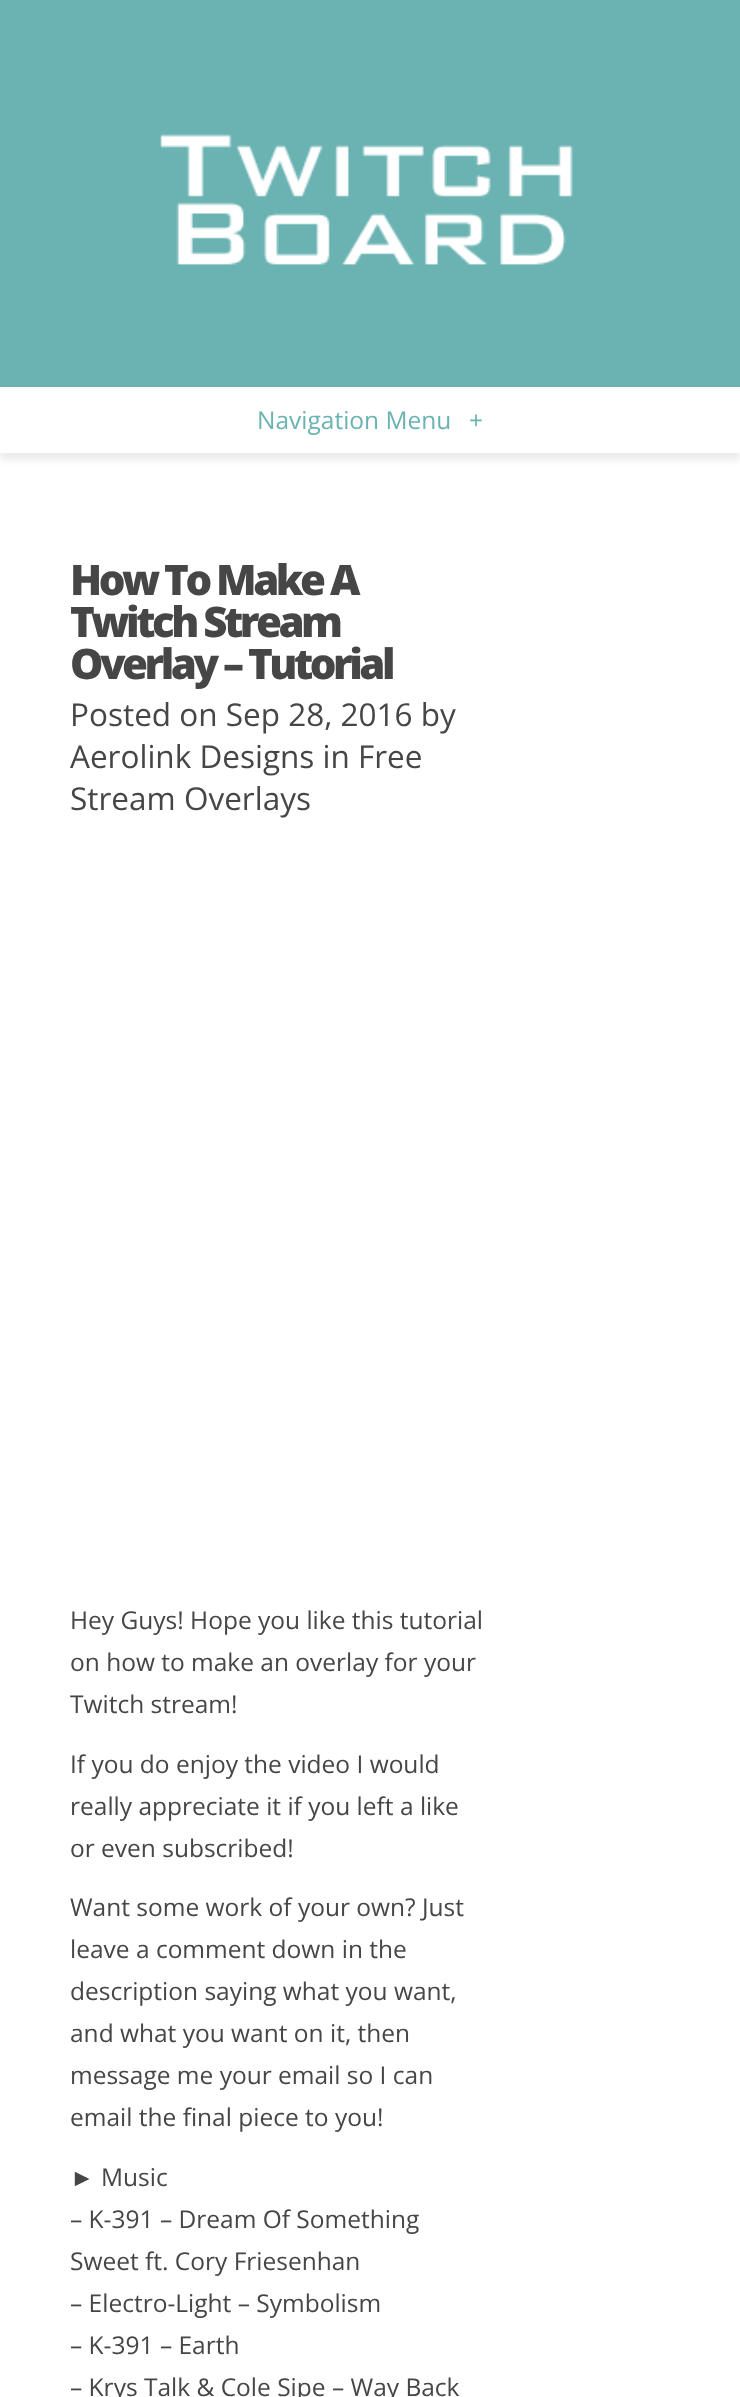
async function draw(canvas) {
  canvas.width = 740
  canvas.height = 2397
  const ctx = canvas.getContext('2d')
  ctx.miterLimit = 4
  ctx.fontKerning = 'normal'
  async function loadImage(src) {
    const img = new Image()
    img.src = src
    await img.decode()
    return img
  }

  ctx.fillStyle = '#fff'
  ctx.fillRect(0, 0, 740, 2397)
  ctx.fillStyle = '#00000014'
  ctx.filter = 'blur(3.5px)'
  ctx.beginPath()
  ctx.rect(0, 7, 740, 453)
  ctx.fill()
  ctx.filter = 'none'
  ctx.fillStyle = '#6ab3b2'
  ctx.fillRect(0, 0, 740, 387)
  ctx.drawImage(await loadImage('image0.png'), 160, 134, 413, 131)
  ctx.fillStyle = '#fff'
  ctx.fillRect(0, 387, 740, 66)
  ctx.font = '24.5px Open Sans'
  ctx.fillStyle = '#6ab3b2'
  ctx.fillText('Navigation Menu', 257, 429)
  ctx.fillText('+', 469, 429)
  ctx.letterSpacing = '-3.5px'
  ctx.font = '800 42px Open Sans'
  ctx.fillStyle = '#464646'
  ctx.fillText('How To Make A', 70, 595)
  ctx.fillText('Twitch Stream', 70, 637)
  ctx.fillText('Overlay – Tutorial', 70, 679)
  ctx.letterSpacing = '0px'
  ctx.font = '31.5px Open Sans'
  ctx.fillText('Posted on Sep 28, 2016 by', 70, 726)
  ctx.fillText('Aerolink Designs in Free', 70, 768)
  ctx.fillText('Stream Overlays', 70, 810)
  ctx.font = '24.5px Open Sans'
  ctx.fillText('Hey Guys! Hope you like this tutorial', 70, 1629)
  ctx.fillText('on how to make an overlay for your', 70, 1671)
  ctx.fillText('Twitch stream!', 70, 1713)
  ctx.fillText('If you do enjoy the video I would', 70, 1773)
  ctx.fillText('really appreciate it if you left a like', 70, 1815)
  ctx.fillText('or even subscribed!', 70, 1857)
  ctx.fillText('Want some work of your own? Just', 70, 1916)
  ctx.fillText('leave a comment down in the', 70, 1958)
  ctx.fillText('description saying what you want,', 70, 2000)
  ctx.fillText('and what you want on it, then', 70, 2042)
  ctx.fillText('message me your email so I can', 70, 2084)
  ctx.fillText('email the final piece to you!', 70, 2126)
  ctx.font = '24.5px Liberation Sans'
  ctx.fillText('►', 70, 2186)
  ctx.font = '24.5px Open Sans'
  ctx.fillText('Music', 101, 2186)
  ctx.fillText('– K-391 – Dream Of Something', 70, 2228)
  ctx.fillText('Sweet ft. Cory Friesenhan', 70, 2270)
  ctx.fillText('– Electro-Light – Symbolism', 70, 2312)
  ctx.fillText('– K-391 – Earth', 70, 2354)
  ctx.fillText('– Krys Talk & Cole Sipe – Way Back', 70, 2396)
}

draw(document.querySelector('canvas'))
